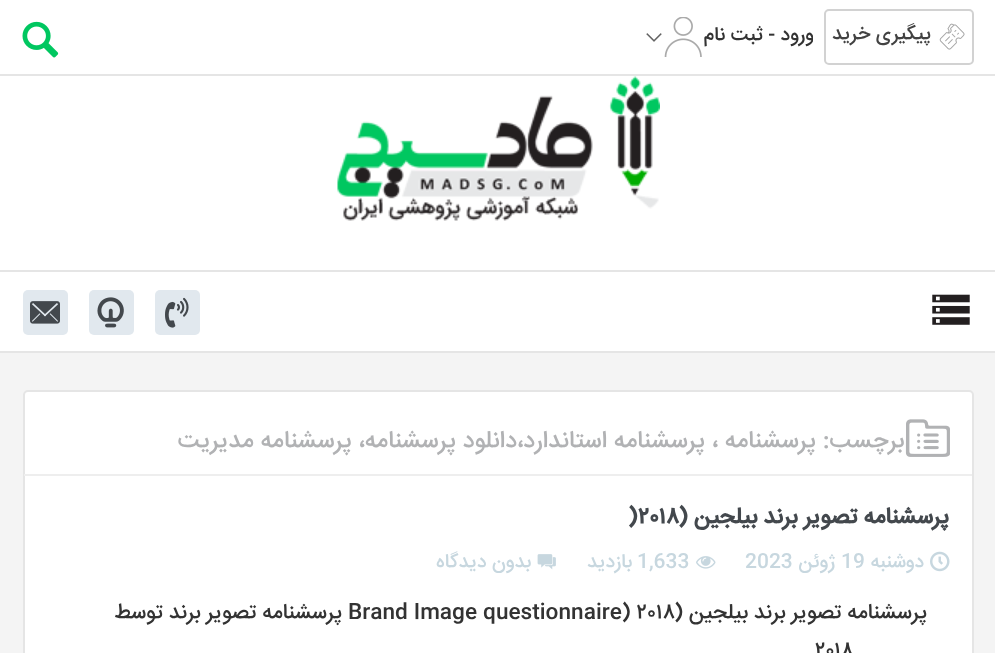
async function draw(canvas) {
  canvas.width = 995
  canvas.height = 653
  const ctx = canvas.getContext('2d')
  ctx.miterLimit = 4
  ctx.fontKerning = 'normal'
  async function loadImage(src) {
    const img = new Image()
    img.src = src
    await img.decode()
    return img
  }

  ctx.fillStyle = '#f4f4f4'
  ctx.fillRect(0, 0, 995, 653)
  ctx.fillStyle = '#fff'
  ctx.fillRect(0, 0, 995, 351)
  ctx.fillStyle = '#e5e5e5'
  ctx.fillRect(0, 74, 995, 2)
  ctx.drawImage(await loadImage('image0.png'), 22, 21, 37, 37)
  ctx.beginPath()
  ctx.roundRect(825, 10, 148, 54, 4)
  ctx.strokeStyle = '#d2d2d2'
  ctx.lineWidth = 2
  ctx.stroke()
  ctx.drawImage(await loadImage('image1.png'), 939, 23, 26, 27)
  ctx.direction = 'rtl'
  ctx.font = '500 19.5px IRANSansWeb'
  ctx.fillStyle = '#424242'
  ctx.fillText('پیگیری خرید', 931, 39)
  ctx.save()
  ctx.beginPath()
  ctx.rect(704, 20, 109, 34)
  ctx.clip()
  ctx.fillStyle = '#333'
  ctx.fillText('ورود - ثبت نام', 814, 40)
  ctx.restore()
  ctx.drawImage(await loadImage('image2.png'), 664, 17, 38, 40)
  ctx.drawImage(await loadImage('image3.png'), 646, 33, 16, 9)
  ctx.drawImage(await loadImage('image4.png'), 337, 76, 323, 145)
  ctx.fillStyle = '#e5e5e5'
  ctx.fillRect(0, 270, 995, 2)
  ctx.fillRect(0, 351, 995, 2)
  ctx.drawImage(await loadImage('image5.png'), 932, 294, 38, 31)
  ctx.fillStyle = '#e1e8ee'
  ctx.beginPath()
  ctx.roundRect(155, 290, 45, 45, 5)
  ctx.fill()
  ctx.drawImage(await loadImage('image6.png'), 165, 297, 24, 31)
  ctx.beginPath()
  ctx.roundRect(89, 290, 45, 45, 5)
  ctx.fill()
  ctx.drawImage(await loadImage('image7.png'), 97, 297, 27, 31)
  ctx.beginPath()
  ctx.roundRect(23, 290, 45, 45, 5)
  ctx.fill()
  ctx.drawImage(await loadImage('image8.png'), 30, 301, 30, 23)
  ctx.fillStyle = '#fff'
  ctx.beginPath()
  ctx.roundRect(24, 391, 949, 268, 4)
  ctx.fill()
  ctx.strokeStyle = '#e5e5e5'
  ctx.stroke()
  ctx.fillStyle = '#eee'
  ctx.fillRect(24, 474, 948, 2)
  ctx.drawImage(await loadImage('image9.png'), 905, 419, 45, 38)
  ctx.font = '500 24px IRANSansWeb'
  ctx.fillStyle = '#b1b2b4'
  ctx.fillText('برچسب:', 904, 447)
  ctx.fillText('پرسشنامه ، پرسشنامه استاندارد،دانلود پرسشنامه، پرسشنامه مدیریت', 816, 447)
  ctx.font = 'bold 22.5px IRANSansWeb'
  ctx.fillStyle = '#43484d'
  ctx.fillText('پرسشنامه تصویر برند بیلجین (', 949, 523)
  ctx.direction = 'ltr'
  ctx.fillText('۲۰۱۸', 638, 523)
  ctx.fillText(')', 628, 523)
  ctx.drawImage(await loadImage('image10.png'), 930, 551, 20, 21)
  ctx.direction = 'rtl'
  ctx.font = '500 19.5px IRANSansWeb'
  ctx.fillStyle = '#c7d7df'
  ctx.fillText('دوشنبه', 924, 567)
  ctx.direction = 'ltr'
  ctx.fillText('19', 841, 567)
  ctx.direction = 'rtl'
  ctx.fillText('ژوئن', 836, 567)
  ctx.direction = 'ltr'
  ctx.fillText('2023', 745, 567)
  ctx.drawImage(await loadImage('image11.png'), 696, 556, 20, 13)
  ctx.fillText('1,633', 637, 567)
  ctx.direction = 'rtl'
  ctx.fillText('بازدید', 632, 567)
  ctx.drawImage(await loadImage('image12.png'), 537, 554, 19, 16)
  ctx.fillText('بدون دیدگاه', 531, 567)
  ctx.font = '500 21px IRANSansWeb'
  ctx.fillStyle = '#333'
  ctx.fillText('پرسشنامه تصویر برند بیلجین (', 927, 618)
  ctx.direction = 'ltr'
  ctx.fillText('Brand Image questionnaire) ۲۰۱۸', 348, 618)
  ctx.direction = 'rtl'
  ctx.fillText('پرسشنامه تصویر برند توسط', 342, 618)
  ctx.direction = 'ltr'
  ctx.fillText('۲۰۱۸', 815, 656)
}

draw(document.querySelector('canvas'))
